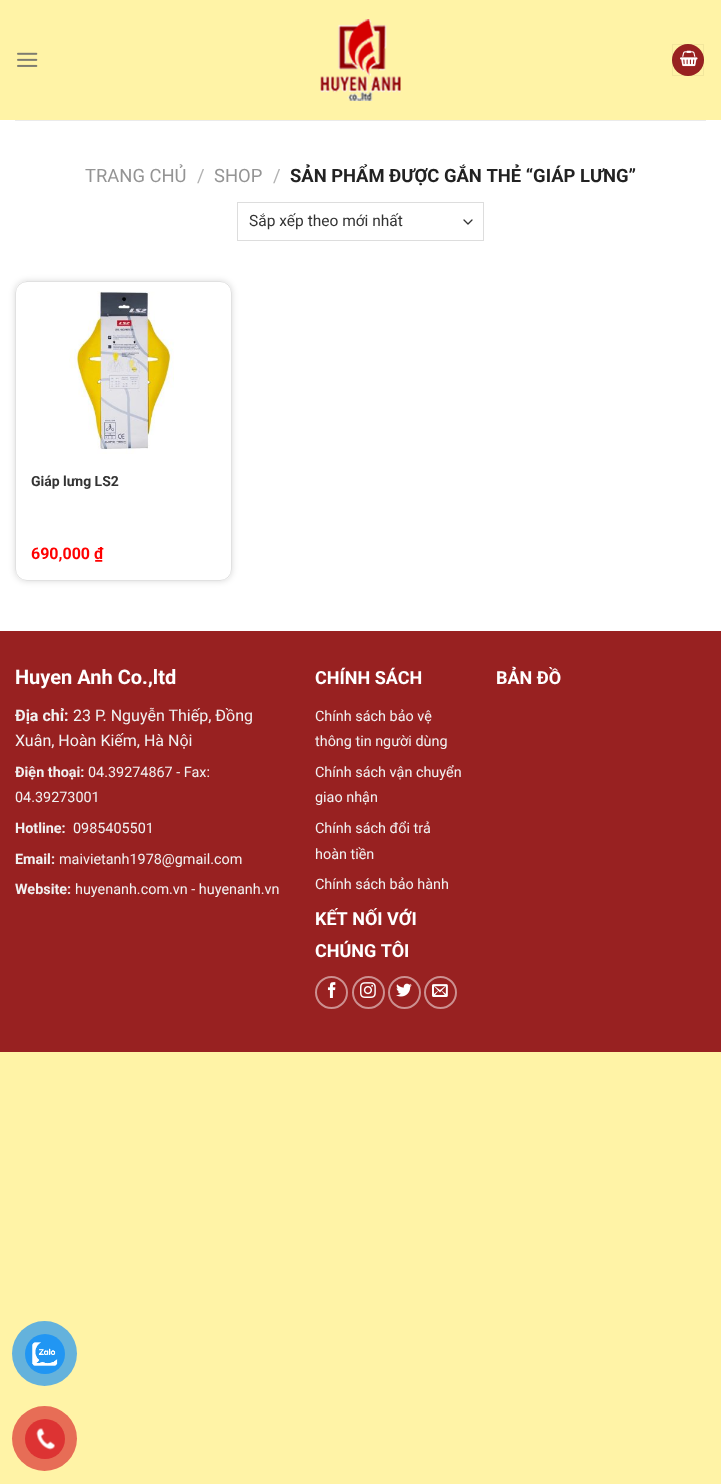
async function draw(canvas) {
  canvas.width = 721
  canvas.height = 1484
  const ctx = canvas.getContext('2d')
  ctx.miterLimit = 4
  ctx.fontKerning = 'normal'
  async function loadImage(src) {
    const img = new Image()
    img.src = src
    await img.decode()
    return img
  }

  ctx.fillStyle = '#fff3a6'
  ctx.fillRect(0, 0, 721, 1484)
  ctx.fillStyle = '#fff'
  ctx.fillRect(0, 120, 721, 511)
  ctx.drawImage(await loadImage('image0.png'), 17, 52, 21, 15)
  ctx.drawImage(await loadImage('image1.png'), 320, 19, 81, 82)
  ctx.fillStyle = '#982121'
  ctx.beginPath()
  ctx.arc(688, 60, 16, 0, 2 * Math.PI)
  ctx.fill()
  ctx.strokeStyle = '#0000000d'
  ctx.strokeRect(672.5, 44.5, 31, 31)
  ctx.drawImage(await loadImage('image2.png'), 680, 50, 18, 17)
  ctx.fillStyle = '#ebebeb'
  ctx.fillRect(15, 120, 691, 1)
  ctx.font = '18.4px Roboto'
  ctx.fillStyle = '#949494'
  ctx.fillText('TRANG CHỦ', 85, 182)
  ctx.fillStyle = '#b2b2b2'
  ctx.fillText('/', 197, 182)
  ctx.fillStyle = '#949494'
  ctx.fillText('SHOP', 214, 182)
  ctx.fillStyle = '#b2b2b2'
  ctx.fillText('/', 273, 182)
  ctx.font = 'bold 18.4px Roboto'
  ctx.fillStyle = '#222'
  ctx.fillText('SẢN PHẨM ĐƯỢC GẮN THẺ “GIÁP LƯNG”', 290, 182)
  ctx.beginPath()
  ctx.moveTo(464, 220)
  ctx.lineTo(468, 224)
  ctx.lineTo(472, 220)
  ctx.strokeStyle = '#333'
  ctx.lineWidth = 1.3
  ctx.lineCap = 'round'
  ctx.lineJoin = 'round'
  ctx.stroke()
  ctx.strokeStyle = '#ddd'
  ctx.lineWidth = 1
  ctx.lineJoin = 'miter'
  ctx.strokeRect(237.5, 202.5, 246, 38)
  ctx.font = '15.5px Roboto'
  ctx.fillStyle = '#333'
  ctx.fillText('Sắp xếp theo mới nhất', 249, 226)
  ctx.save()
  ctx.beginPath()
  ctx.moveTo(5, 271)
  ctx.lineTo(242, 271)
  ctx.lineTo(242, 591)
  ctx.lineTo(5, 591)
  ctx.closePath()
  ctx.moveTo(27, 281)
  ctx.lineTo(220, 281)
  ctx.bezierCurveTo(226.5, 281, 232, 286.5, 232, 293)
  ctx.lineTo(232, 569)
  ctx.bezierCurveTo(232, 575.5, 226.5, 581, 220, 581)
  ctx.lineTo(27, 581)
  ctx.bezierCurveTo(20.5, 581, 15, 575.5, 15, 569)
  ctx.lineTo(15, 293)
  ctx.bezierCurveTo(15, 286.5, 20.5, 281, 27, 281)
  ctx.closePath()
  ctx.clip('evenodd')
  ctx.fillStyle = '#00000026'
  ctx.filter = 'blur(3px)'
  ctx.beginPath()
  ctx.roundRect(15, 281, 217, 300, 12)
  ctx.fill()
  ctx.filter = 'none'
  ctx.restore()
  ctx.beginPath()
  ctx.roundRect(15.5, 281.5, 216, 299, 11.5)
  ctx.strokeStyle = '#e1e1e1'
  ctx.stroke()
  ctx.drawImage(await loadImage('image3.png'), 69, 291, 105, 163)
  ctx.font = 'bold 14px Roboto'
  ctx.fillText('Giáp lưng LS2', 31, 486)
  ctx.font = 'bold 16px Roboto'
  ctx.fillStyle = '#f00'
  ctx.fillText('690,000 ₫', 31, 559)
  ctx.fillStyle = '#982121'
  ctx.fillRect(0, 631, 721, 421)
  ctx.font = 'bold 20px Roboto'
  ctx.fillStyle = '#fff'
  ctx.fillText('Huyen Anh Co.,ltd', 15, 684)
  ctx.font = 'bold 16px Roboto'
  ctx.fillStyle = '#f1f1f1'
  ctx.fillText('Địa chỉ:', 15, 721)
  ctx.font = '16px Roboto'
  ctx.fillText('23 P. Nguyễn Thiếp, Đồng', 73, 721)
  ctx.fillText('Xuân, Hoàn Kiếm, Hà Nội', 15, 746)
  ctx.font = 'bold 14.4px Roboto'
  ctx.fillText('Điện thoại:', 15, 777)
  ctx.font = '14.4px Roboto'
  ctx.fillText('04.39274867 - Fax:', 88, 777)
  ctx.fillText('04.39273001', 15, 802)
  ctx.font = 'bold 14.4px Roboto'
  ctx.fillText('Hotline:', 15, 833)
  ctx.font = '14.4px Roboto'
  ctx.fillText('0985405501', 73, 833)
  ctx.font = 'bold 14.4px Roboto'
  ctx.fillText('Email:', 15, 864)
  ctx.font = '14.4px Roboto'
  ctx.fillText('maivietanh1978@gmail.com', 59, 864)
  ctx.font = 'bold 14.4px Roboto'
  ctx.fillText('Website:', 15, 894)
  ctx.font = '14.4px Roboto'
  ctx.fillText('huyenanh.com.vn - huyenanh.vn', 75, 894)
  ctx.font = 'bold 18px Roboto'
  ctx.fillStyle = '#fff'
  ctx.fillText('CHÍNH SÁCH', 315, 684)
  ctx.font = '14.4px Roboto'
  ctx.fillStyle = '#f1f1f1'
  ctx.fillText('Chính sách bảo vệ', 315, 721)
  ctx.fillText('thông tin người dùng', 315, 746)
  ctx.fillText('Chính sách vận chuyển', 315, 777)
  ctx.fillText('giao nhận', 315, 802)
  ctx.fillText('Chính sách đổi trả', 315, 833)
  ctx.fillText('hoàn tiền', 315, 859)
  ctx.fillText('Chính sách bảo hành', 315, 889)
  ctx.font = 'bold 18px Roboto'
  ctx.fillStyle = '#fff'
  ctx.fillText('KẾT NỐI VỚI', 315, 925)
  ctx.fillText('CHÚNG TÔI', 315, 957)
  ctx.beginPath()
  ctx.arc(331.5, 992.5, 15.5, 0, 2 * Math.PI)
  ctx.strokeStyle = '#cc9090'
  ctx.lineWidth = 2
  ctx.stroke()
  ctx.drawImage(await loadImage('image4.png'), 327, 982, 9, 16)
  ctx.beginPath()
  ctx.arc(368.5, 992.5, 15.5, 0, 2 * Math.PI)
  ctx.stroke()
  ctx.drawImage(await loadImage('image5.png'), 360, 982, 16, 16)
  ctx.beginPath()
  ctx.arc(404.5, 992.5, 15.5, 0, 2 * Math.PI)
  ctx.stroke()
  ctx.drawImage(await loadImage('image6.png'), 396, 983, 16, 14)
  ctx.beginPath()
  ctx.arc(440.5, 992.5, 15.5, 0, 2 * Math.PI)
  ctx.stroke()
  ctx.drawImage(await loadImage('image7.png'), 432, 984, 16, 13)
  ctx.fillText('BẢN ĐỒ', 496, 684)
  ctx.fillStyle = '#64b2dc'
  ctx.beginPath()
  ctx.arc(44.5, 1353.5, 32.5, 0, 2 * Math.PI)
  ctx.fill()
  ctx.fillStyle = '#2196f3'
  ctx.beginPath()
  ctx.arc(45, 1354, 20, 0, 2 * Math.PI)
  ctx.fill()
  ctx.drawImage(await loadImage('image8.png'), 32, 1342, 26, 24)
  ctx.fillStyle = '#e76d56'
  ctx.beginPath()
  ctx.arc(44.5, 1438.5, 32.5, 0, 2 * Math.PI)
  ctx.fill()
  ctx.fillStyle = '#d33'
  ctx.beginPath()
  ctx.arc(45, 1439, 20, 0, 2 * Math.PI)
  ctx.fill()
  ctx.drawImage(await loadImage('image9.png'), 36, 1428, 19, 22)
}

draw(document.querySelector('canvas'))
